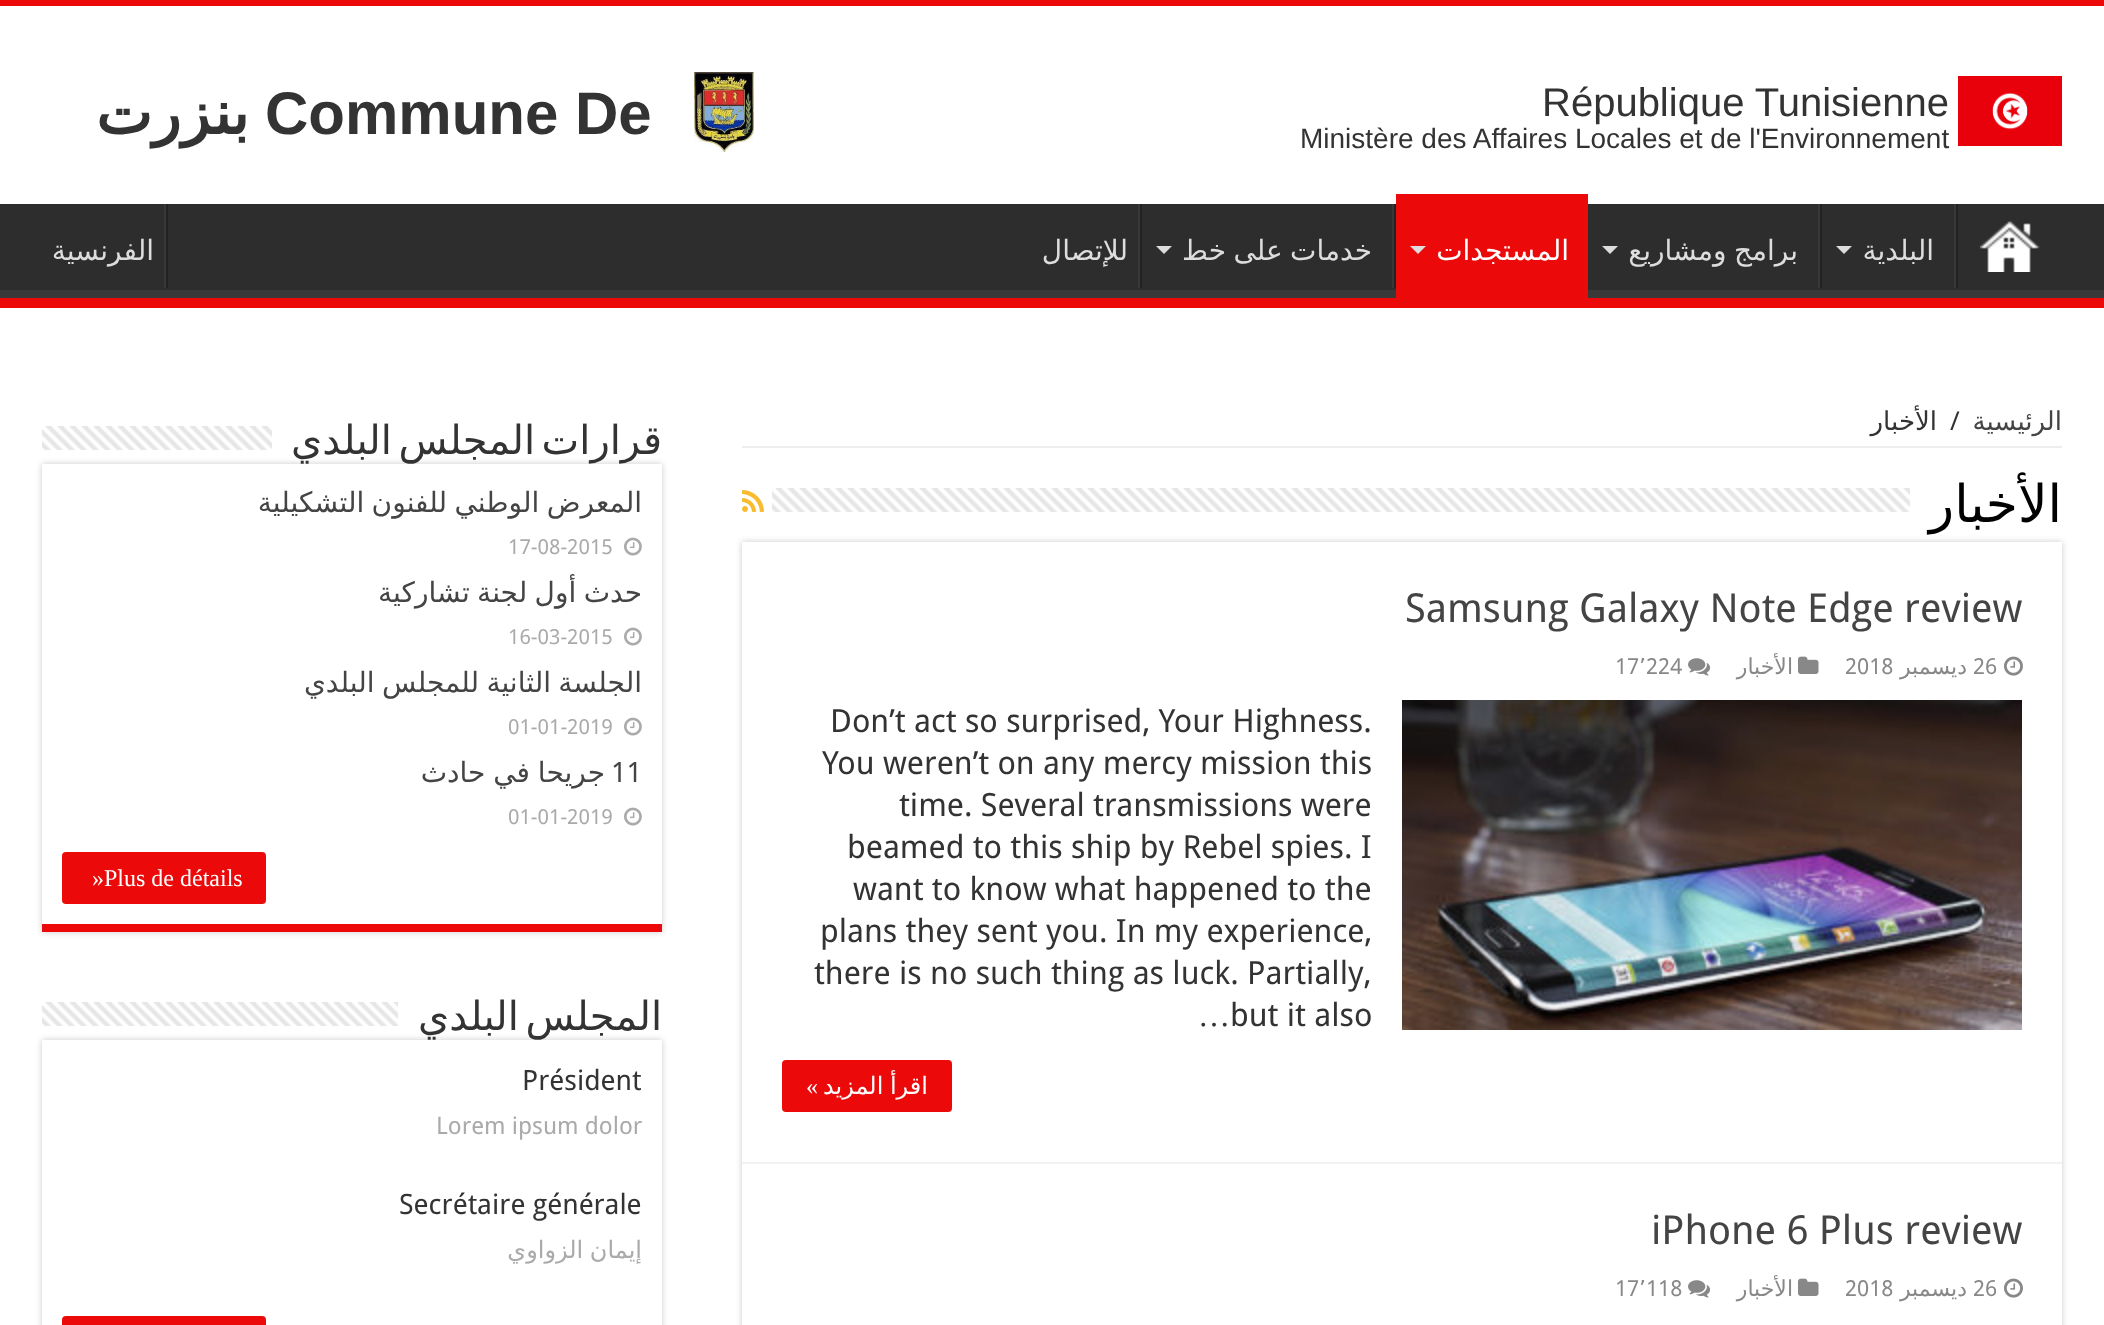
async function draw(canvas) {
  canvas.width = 2104
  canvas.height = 1325
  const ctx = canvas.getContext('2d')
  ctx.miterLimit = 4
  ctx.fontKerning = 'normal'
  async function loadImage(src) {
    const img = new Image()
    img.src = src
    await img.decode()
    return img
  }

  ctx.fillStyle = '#fff'
  ctx.fillRect(0, 0, 2104, 1325)
  ctx.fillStyle = '#eb0909'
  ctx.fillRect(0, 0, 2104, 6)
  ctx.direction = 'rtl'
  ctx.font = 'bold 60px DejaVu Sans'
  ctx.fillStyle = '#333'
  ctx.fillText('بنزرت', 249, 134)
  ctx.direction = 'ltr'
  ctx.font = 'bold 60px Liberation Sans'
  ctx.fillText('Commune De', 265, 134)
  ctx.drawImage(await loadImage('image0.png'), 694, 72, 60, 80)
  ctx.font = '40px Liberation Sans'
  ctx.fillText('République Tunisienne', 1542, 116)
  ctx.font = '28px Liberation Sans'
  ctx.fillText('Ministère des Affaires Locales et de l\'Environnement', 1300, 148)
  ctx.drawImage(await loadImage('image1.png'), 1958, 76, 104, 70)
  ctx.fillStyle = '#2d2d2d'
  ctx.fillRect(0, 204, 2104, 86)
  ctx.save()
  ctx.beginPath()
  ctx.rect(0, 204, 2104, 94)
  ctx.clip()
  ctx.fillStyle = '#393939'
  ctx.beginPath()
  ctx.moveTo(-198, 6)
  ctx.lineTo(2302, 6)
  ctx.lineTo(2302, 496)
  ctx.lineTo(-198, 496)
  ctx.closePath()
  ctx.moveTo(-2, 192)
  ctx.lineTo(2102, 192)
  ctx.bezierCurveTo(2103, 192, 2104, 193, 2104, 194)
  ctx.lineTo(2104, 288)
  ctx.bezierCurveTo(2104, 289, 2103, 290, 2102, 290)
  ctx.lineTo(-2, 290)
  ctx.bezierCurveTo(-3, 290, -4, 289, -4, 288)
  ctx.lineTo(-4, 194)
  ctx.bezierCurveTo(-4, 193, -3, 192, -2, 192)
  ctx.closePath()
  ctx.fill('evenodd')
  ctx.restore()
  ctx.fillStyle = '#eb0909'
  ctx.fillRect(0, 298, 2104, 10)
  ctx.fillStyle = '#222'
  ctx.fillRect(166, 204, 2, 84)
  ctx.fillStyle = '#383838'
  ctx.fillRect(164, 204, 2, 84)
  ctx.direction = 'rtl'
  ctx.font = '28px DejaVu Sans'
  ctx.fillStyle = '#ddd'
  ctx.fillText('الفرنسية', 154, 260)
  ctx.fillStyle = '#222'
  ctx.fillRect(1140, 204, 2, 84)
  ctx.fillStyle = '#383838'
  ctx.fillRect(1138, 204, 2, 84)
  ctx.fillStyle = '#ddd'
  ctx.fillText('للإتصال', 1128, 260)
  ctx.fillStyle = '#222'
  ctx.fillRect(1394, 204, 2, 84)
  ctx.fillStyle = '#ddd'
  ctx.beginPath()
  ctx.moveTo(1156, 246)
  ctx.lineTo(1172, 246)
  ctx.lineTo(1164, 254)
  ctx.closePath()
  ctx.fill()
  ctx.fillStyle = '#383838'
  ctx.fillRect(1392, 204, 2, 84)
  ctx.wordSpacing = '-1.5px'
  ctx.fillStyle = '#ddd'
  ctx.fillText('خدمات على خط', 1372, 260)
  ctx.fillStyle = '#eb0909'
  ctx.fillRect(1396, 194, 192, 104)
  ctx.fillStyle = '#ddd'
  ctx.beginPath()
  ctx.moveTo(1410, 246)
  ctx.lineTo(1426, 246)
  ctx.lineTo(1418, 254)
  ctx.closePath()
  ctx.fill()
  ctx.wordSpacing = '0px'
  ctx.fillStyle = '#fff'
  ctx.fillText('المستجدات', 1569, 260)
  ctx.fillStyle = '#222'
  ctx.fillRect(1820, 204, 2, 84)
  ctx.fillStyle = '#ddd'
  ctx.beginPath()
  ctx.moveTo(1602, 246)
  ctx.lineTo(1618, 246)
  ctx.lineTo(1610, 254)
  ctx.closePath()
  ctx.fill()
  ctx.fillStyle = '#383838'
  ctx.fillRect(1818, 204, 2, 84)
  ctx.wordSpacing = '-1.5px'
  ctx.fillStyle = '#ddd'
  ctx.fillText('برامج ومشاريع', 1798, 260)
  ctx.fillStyle = '#222'
  ctx.fillRect(1956, 204, 2, 84)
  ctx.fillStyle = '#ddd'
  ctx.beginPath()
  ctx.moveTo(1836, 246)
  ctx.lineTo(1852, 246)
  ctx.lineTo(1844, 254)
  ctx.closePath()
  ctx.fill()
  ctx.fillStyle = '#383838'
  ctx.fillRect(1954, 204, 2, 84)
  ctx.wordSpacing = '0px'
  ctx.fillStyle = '#ddd'
  ctx.fillText('البلدية', 1934, 260)
  ctx.drawImage(await loadImage('image2.png'), 1980, 221, 60, 51)
  ctx.drawImage(await loadImage('image3.png'), 42, 426, 230, 24)
  ctx.save()
  ctx.beginPath()
  ctx.moveTo(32, 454)
  ctx.lineTo(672, 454)
  ctx.lineTo(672, 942)
  ctx.lineTo(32, 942)
  ctx.closePath()
  ctx.moveTo(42, 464)
  ctx.lineTo(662, 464)
  ctx.lineTo(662, 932)
  ctx.lineTo(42, 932)
  ctx.closePath()
  ctx.clip('evenodd')
  ctx.fillStyle = '#cacaca'
  ctx.filter = 'blur(3px)'
  ctx.beginPath()
  ctx.rect(42, 464, 620, 468)
  ctx.fill()
  ctx.filter = 'none'
  ctx.restore()
  ctx.wordSpacing = '-6px'
  ctx.font = '40px DejaVu Sans'
  ctx.fillStyle = '#333'
  ctx.fillText('المجلس البلدي', 535, 454)
  ctx.wordSpacing = '0px'
  ctx.fillText('قرارات', 662, 454)
  ctx.fillStyle = '#eb0909'
  ctx.fillRect(42, 924, 620, 8)
  ctx.save()
  ctx.beginPath()
  ctx.rect(62, 484, 580, 90)
  ctx.clip()
  ctx.wordSpacing = '-1.5px'
  ctx.font = '28px DejaVu Sans'
  ctx.fillStyle = '#444'
  ctx.fillText('المعرض الوطني للفنون التشكيلية', 642, 512)
  ctx.restore()
  ctx.direction = 'ltr'
  ctx.font = '20.75px Droid Sans'
  ctx.fillStyle = '#aaa'
  ctx.fillText('17-08-2015', 508, 554)
  ctx.drawImage(await loadImage('image4.png'), 624, 537, 18, 19)
  ctx.save()
  ctx.beginPath()
  ctx.rect(62, 574, 580, 90)
  ctx.clip()
  ctx.wordSpacing = '-1.5px'
  ctx.direction = 'rtl'
  ctx.font = '28px DejaVu Sans'
  ctx.fillStyle = '#444'
  ctx.fillText('حدث أول لجنة تشاركية', 642, 602)
  ctx.restore()
  ctx.fillText('16-03-2015', 508, 644)
  ctx.drawImage(await loadImage('image4.png'), 624, 627, 18, 19)
  ctx.save()
  ctx.beginPath()
  ctx.rect(62, 664, 580, 90)
  ctx.clip()
  ctx.wordSpacing = '-1.5px'
  ctx.direction = 'rtl'
  ctx.font = '28px DejaVu Sans'
  ctx.fillStyle = '#444'
  ctx.fillText('الجلسة الثانية للمجلس البلدي', 642, 692)
  ctx.restore()
  ctx.fillText('01-01-2019', 508, 734)
  ctx.drawImage(await loadImage('image4.png'), 624, 717, 18, 19)
  ctx.wordSpacing = '-1px'
  ctx.direction = 'rtl'
  ctx.font = '28px DejaVu Sans'
  ctx.fillStyle = '#444'
  ctx.fillText('جريحا في حادث', 605, 782)
  ctx.wordSpacing = '0px'
  ctx.direction = 'ltr'
  ctx.font = '28px Droid Sans'
  ctx.fillText('11', 611, 782)
  ctx.font = '20.75px Droid Sans'
  ctx.fillStyle = '#aaa'
  ctx.fillText('01-01-2019', 508, 824)
  ctx.drawImage(await loadImage('image4.png'), 624, 807, 18, 19)
  ctx.fillStyle = '#eb0909'
  ctx.beginPath()
  ctx.roundRect(62, 852, 204, 52, 4)
  ctx.fill()
  ctx.font = '24px Liberation Serif'
  ctx.fillStyle = '#fff'
  ctx.fillText('»Plus de détails', 92, 886)
  ctx.drawImage(await loadImage('image5.png'), 42, 1002, 356, 24)
  ctx.save()
  ctx.beginPath()
  ctx.moveTo(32, 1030)
  ctx.lineTo(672, 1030)
  ctx.lineTo(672, 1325)
  ctx.lineTo(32, 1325)
  ctx.closePath()
  ctx.moveTo(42, 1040)
  ctx.lineTo(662, 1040)
  ctx.lineTo(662, 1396)
  ctx.lineTo(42, 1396)
  ctx.closePath()
  ctx.clip('evenodd')
  ctx.fillStyle = '#cacaca'
  ctx.filter = 'blur(3px)'
  ctx.beginPath()
  ctx.rect(42, 1040, 620, 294)
  ctx.fill()
  ctx.filter = 'none'
  ctx.restore()
  ctx.wordSpacing = '-6px'
  ctx.direction = 'rtl'
  ctx.font = '40px DejaVu Sans'
  ctx.fillStyle = '#333'
  ctx.fillText('المجلس البلدي', 662, 1030)
  ctx.wordSpacing = '0px'
  ctx.direction = 'ltr'
  ctx.font = '28px Droid Sans'
  ctx.fillText('Président', 522, 1090)
  ctx.font = '24px Droid Sans'
  ctx.fillStyle = '#aaa'
  ctx.fillText('Lorem ipsum dolor', 436, 1134)
  ctx.font = '28px Droid Sans'
  ctx.fillStyle = '#333'
  ctx.fillText('Secrétaire générale', 399, 1214)
  ctx.wordSpacing = '-1px'
  ctx.direction = 'rtl'
  ctx.font = '24px DejaVu Sans'
  ctx.fillStyle = '#aaa'
  ctx.fillText('إيمان الزواوي', 642, 1258)
  ctx.fillStyle = '#eb0909'
  ctx.beginPath()
  ctx.roundRect(62, 1316, 204, 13, 4)
  ctx.fill()
  ctx.fillStyle = '#eee'
  ctx.fillRect(742, 446, 1320, 2)
  ctx.wordSpacing = '0px'
  ctx.font = '26px DejaVu Sans'
  ctx.fillStyle = '#333'
  ctx.fillText('الأخبار', 1937, 430)
  ctx.direction = 'ltr'
  ctx.font = '26px Droid Sans'
  ctx.fillText('/', 1950, 430)
  ctx.direction = 'rtl'
  ctx.font = '26px DejaVu Sans'
  ctx.fillStyle = '#444'
  ctx.fillText('الرئيسية', 2062, 430)
  ctx.drawImage(await loadImage('image6.png'), 742, 490, 22, 22)
  ctx.drawImage(await loadImage('image7.png'), 772, 488, 1138, 24)
  ctx.save()
  ctx.beginPath()
  ctx.moveTo(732, 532)
  ctx.lineTo(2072, 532)
  ctx.lineTo(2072, 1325)
  ctx.lineTo(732, 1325)
  ctx.closePath()
  ctx.moveTo(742, 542)
  ctx.lineTo(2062, 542)
  ctx.lineTo(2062, 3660)
  ctx.lineTo(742, 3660)
  ctx.closePath()
  ctx.clip('evenodd')
  ctx.fillStyle = '#cacaca'
  ctx.filter = 'blur(3px)'
  ctx.beginPath()
  ctx.rect(742, 542, 1320, 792)
  ctx.fill()
  ctx.filter = 'none'
  ctx.restore()
  ctx.font = '52px DejaVu Sans'
  ctx.fillStyle = '#000'
  ctx.fillText('الأخبار', 2062, 522)
  ctx.fillStyle = '#f2f2f2'
  ctx.fillRect(742, 1162, 1320, 2)
  ctx.direction = 'ltr'
  ctx.font = '40px Droid Sans'
  ctx.fillStyle = '#444'
  ctx.fillText('Samsung Galaxy Note Edge review', 1405, 622)
  ctx.font = '22px Droid Sans'
  ctx.fillStyle = '#888'
  ctx.fillText('17', 1615, 674)
  ctx.font = '22px DejaVu Sans'
  ctx.fillText('٬', 1639, 674)
  ctx.font = '22px Droid Sans'
  ctx.fillText('224', 1646, 674)
  ctx.drawImage(await loadImage('image8.png'), 1688, 658, 23, 18)
  ctx.direction = 'rtl'
  ctx.font = '22px DejaVu Sans'
  ctx.fillText('الأخبار', 1793, 674)
  ctx.drawImage(await loadImage('image9.png'), 1798, 656, 21, 18)
  ctx.direction = 'ltr'
  ctx.font = '22px Droid Sans'
  ctx.fillText('2018', 1845, 674)
  ctx.direction = 'rtl'
  ctx.font = '22px DejaVu Sans'
  ctx.fillText('ديسمبر', 1967, 674)
  ctx.direction = 'ltr'
  ctx.font = '22px Droid Sans'
  ctx.fillText('26', 1973, 674)
  ctx.drawImage(await loadImage('image10.png'), 2004, 656, 19, 20)
  ctx.font = '32px Droid Sans'
  ctx.fillStyle = '#333'
  ctx.fillText('Don’t act so surprised, Your Highness.', 830, 732)
  ctx.fillText('You weren’t on any mercy mission this', 822, 774)
  ctx.fillText('time. Several transmissions were', 899, 816)
  ctx.fillText('beamed to this ship by Rebel spies. I', 847, 858)
  ctx.fillText('want to know what happened to the', 853, 900)
  ctx.fillText('plans they sent you. In my experience,', 820, 942)
  ctx.fillText('there is no such thing as luck. Partially,', 814, 984)
  ctx.font = '32px Liberation Serif'
  ctx.fillText('…', 1198, 1026)
  ctx.font = '32px Droid Sans'
  ctx.fillText('but it also', 1230, 1026)
  ctx.fillStyle = '#eb0909'
  ctx.beginPath()
  ctx.roundRect(782, 1060, 170, 52, 4)
  ctx.fill()
  ctx.direction = 'rtl'
  ctx.font = '24px Liberation Serif'
  ctx.fillStyle = '#fff'
  ctx.fillText('»', 818, 1094)
  ctx.wordSpacing = '-1px'
  ctx.font = '24px DejaVu Sans'
  ctx.fillText('اقرأ المزيد', 928, 1094)
  ctx.drawImage(await loadImage('image11.png'), 1402, 700, 620, 330)
  ctx.wordSpacing = '0px'
  ctx.direction = 'ltr'
  ctx.font = '40px Droid Sans'
  ctx.fillStyle = '#444'
  ctx.fillText('iPhone 6 Plus review', 1651, 1244)
  ctx.font = '22px Droid Sans'
  ctx.fillStyle = '#888'
  ctx.fillText('17', 1615, 1296)
  ctx.font = '22px DejaVu Sans'
  ctx.fillText('٬', 1639, 1296)
  ctx.font = '22px Droid Sans'
  ctx.fillText('118', 1646, 1296)
  ctx.drawImage(await loadImage('image8.png'), 1688, 1280, 23, 18)
  ctx.direction = 'rtl'
  ctx.font = '22px DejaVu Sans'
  ctx.fillText('الأخبار', 1793, 1296)
  ctx.drawImage(await loadImage('image9.png'), 1798, 1278, 21, 18)
  ctx.direction = 'ltr'
  ctx.font = '22px Droid Sans'
  ctx.fillText('2018', 1845, 1296)
  ctx.direction = 'rtl'
  ctx.font = '22px DejaVu Sans'
  ctx.fillText('ديسمبر', 1967, 1296)
  ctx.direction = 'ltr'
  ctx.font = '22px Droid Sans'
  ctx.fillText('26', 1973, 1296)
  ctx.drawImage(await loadImage('image10.png'), 2004, 1278, 19, 20)
}

draw(document.querySelector('canvas'))
